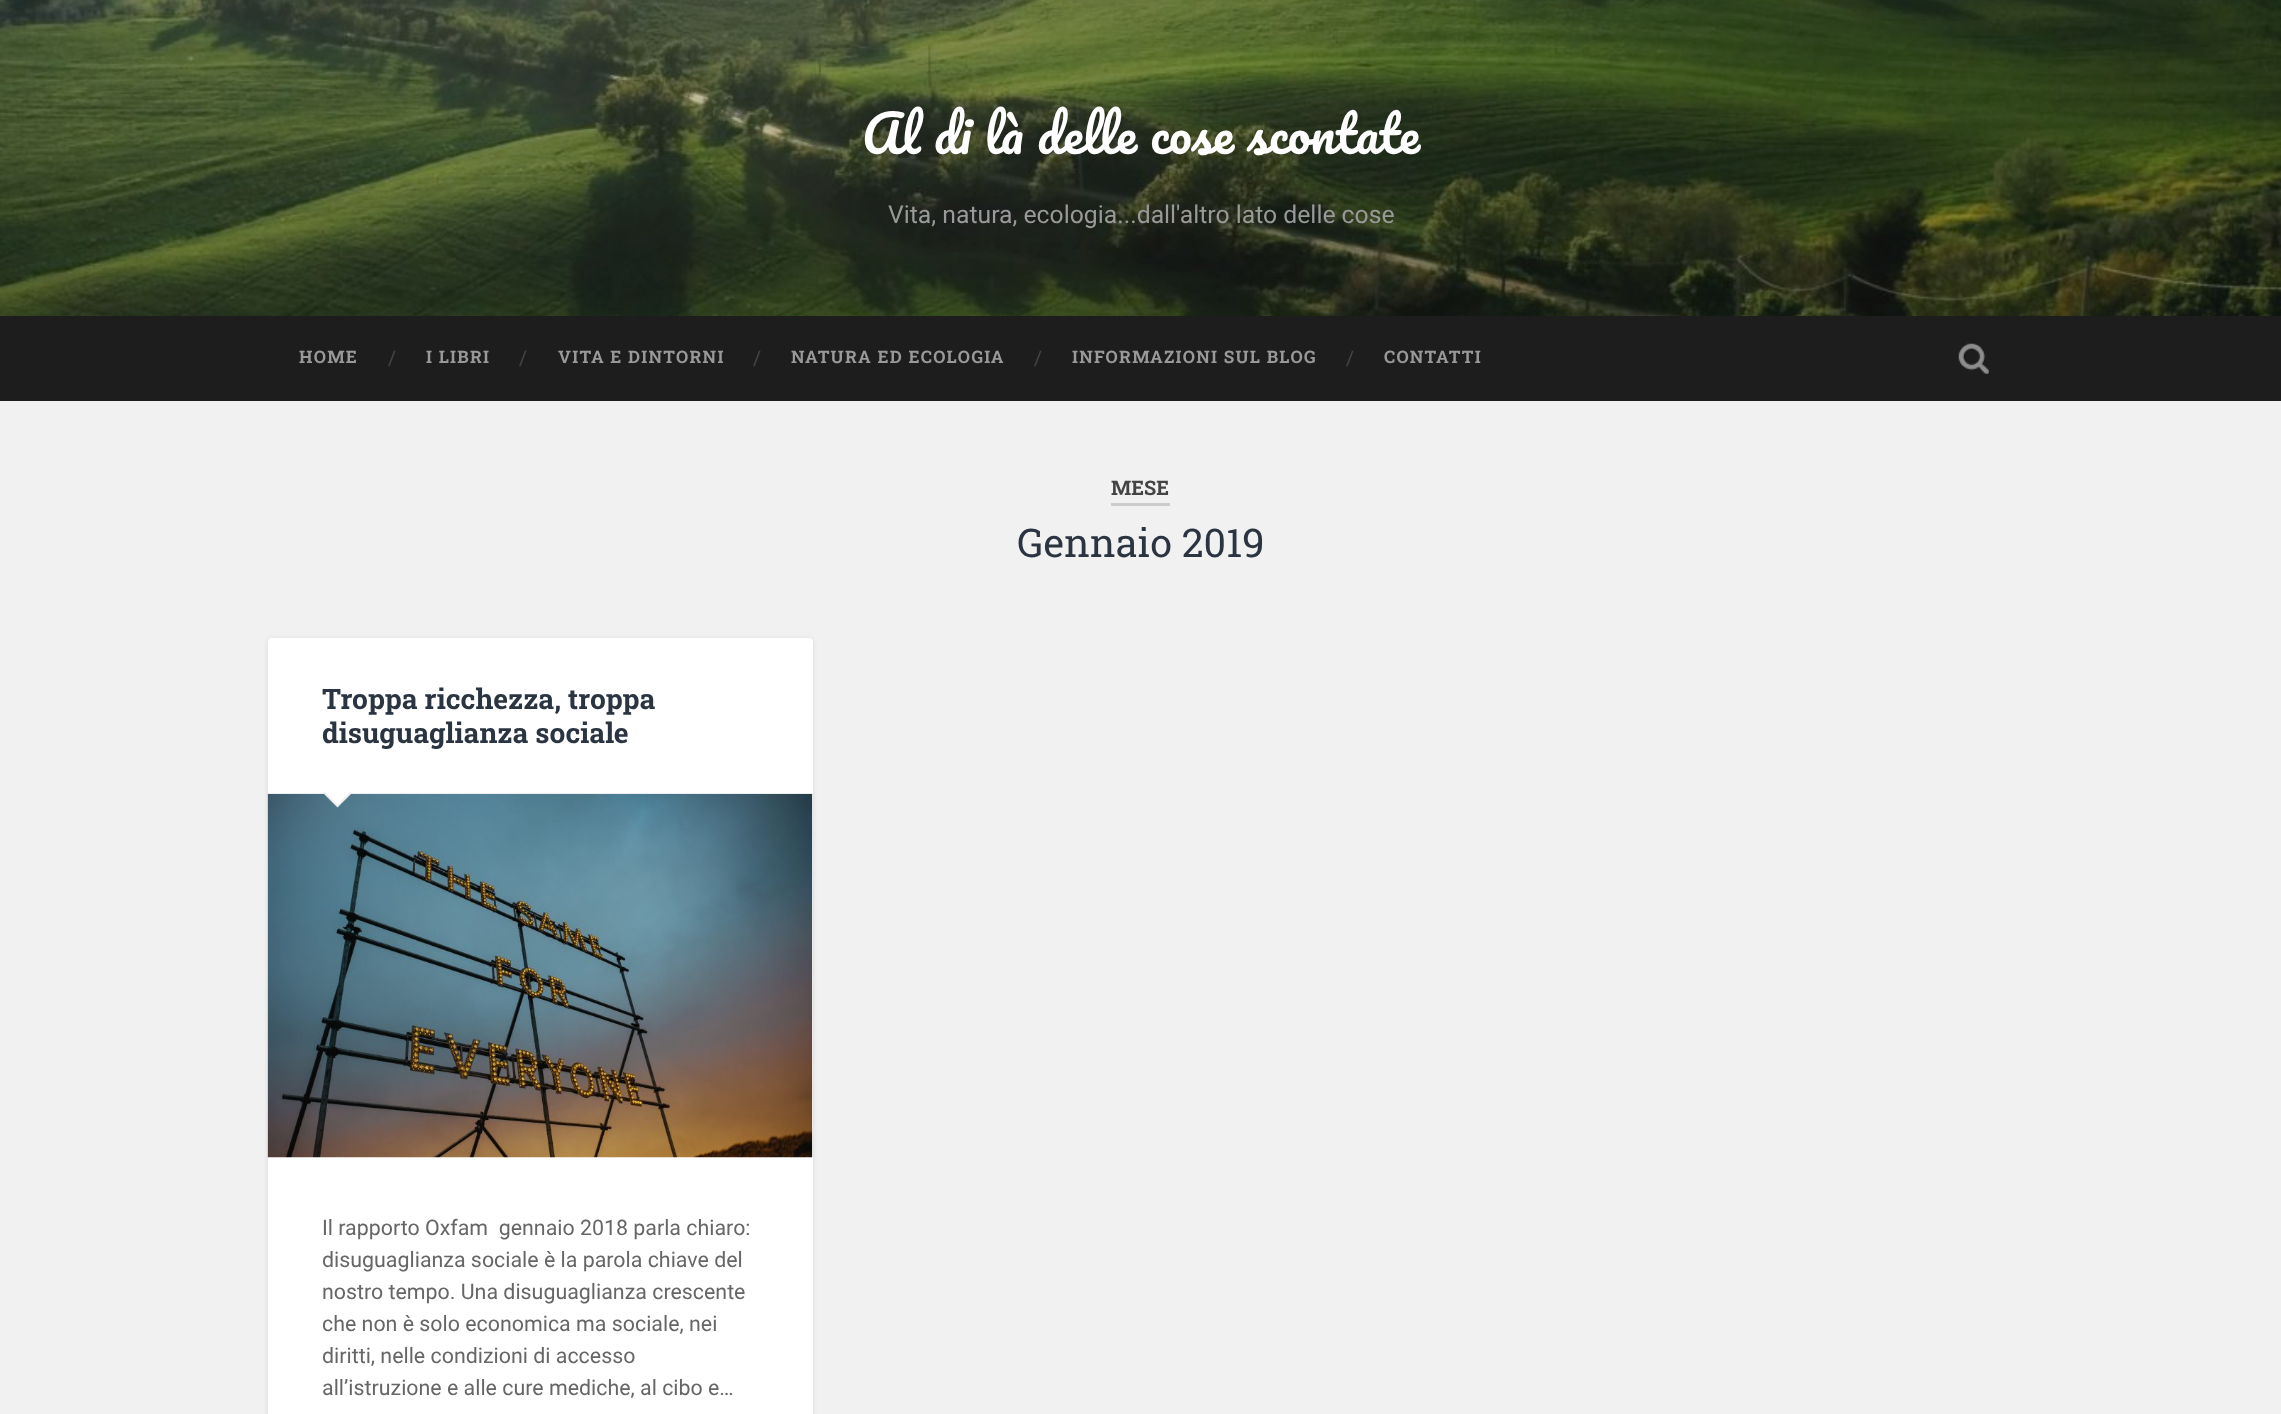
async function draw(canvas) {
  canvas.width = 2281
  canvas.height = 1414
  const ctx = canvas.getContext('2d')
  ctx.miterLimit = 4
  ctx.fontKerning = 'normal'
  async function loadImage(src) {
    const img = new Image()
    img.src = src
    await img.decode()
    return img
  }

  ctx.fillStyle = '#f1f1f1'
  ctx.fillRect(0, 0, 2281, 1414)
  ctx.drawImage(await loadImage('image0.png'), 0, 0, 2281, 316)
  ctx.font = '50.6px Pacifico'
  ctx.fillStyle = '#fff'
  ctx.fillText('Al di là delle cose scontate', 862, 154)
  ctx.font = '24.75px Roboto'
  ctx.fillStyle = '#999'
  ctx.fillText('Vita, natura, ecologia...dall\'altro lato delle cose', 888, 223)
  ctx.fillStyle = '#1d1d1d'
  ctx.fillRect(0, 316, 2281, 85)
  ctx.letterSpacing = '1.25px'
  ctx.font = 'bold 17.25px Roboto Slab'
  ctx.fillStyle = '#999'
  ctx.fillText('HOME', 299, 363)
  ctx.letterSpacing = '0px'
  ctx.font = '20px Roboto Slab'
  ctx.fillStyle = '#444'
  ctx.fillText('/', 388, 365)
  ctx.letterSpacing = '1.25px'
  ctx.font = 'bold 17.25px Roboto Slab'
  ctx.fillStyle = '#999'
  ctx.fillText('I LIBRI', 426, 363)
  ctx.letterSpacing = '0px'
  ctx.font = '20px Roboto Slab'
  ctx.fillStyle = '#444'
  ctx.fillText('/', 519, 365)
  ctx.letterSpacing = '1.25px'
  ctx.font = 'bold 17.25px Roboto Slab'
  ctx.fillStyle = '#999'
  ctx.fillText('VITA E DINTORNI', 558, 363)
  ctx.letterSpacing = '0px'
  ctx.font = '20px Roboto Slab'
  ctx.fillStyle = '#444'
  ctx.fillText('/', 753, 365)
  ctx.letterSpacing = '1.25px'
  ctx.font = 'bold 17.25px Roboto Slab'
  ctx.fillStyle = '#999'
  ctx.fillText('NATURA ED ECOLOGIA', 791, 363)
  ctx.letterSpacing = '0px'
  ctx.font = '20px Roboto Slab'
  ctx.fillStyle = '#444'
  ctx.fillText('/', 1034, 365)
  ctx.letterSpacing = '1.25px'
  ctx.font = 'bold 17.25px Roboto Slab'
  ctx.fillStyle = '#999'
  ctx.fillText('INFORMAZIONI SUL BLOG', 1072, 363)
  ctx.letterSpacing = '0px'
  ctx.font = '20px Roboto Slab'
  ctx.fillStyle = '#444'
  ctx.fillText('/', 1346, 365)
  ctx.letterSpacing = '1.25px'
  ctx.font = 'bold 17.25px Roboto Slab'
  ctx.fillStyle = '#999'
  ctx.fillText('CONTATTI', 1384, 363)
  ctx.drawImage(await loadImage('image1.png'), 1958, 343, 31, 31)
  ctx.fillStyle = '#ccc'
  ctx.fillRect(1111, 503, 59, 3)
  ctx.letterSpacing = '0px'
  ctx.font = 'bold 20px Roboto Slab'
  ctx.fillStyle = '#444'
  ctx.fillText('MESE', 1111, 495)
  ctx.font = '39.5px Roboto Slab'
  ctx.fillStyle = '#2b3542'
  ctx.fillText('Gennaio 2019', 1017, 557)
  ctx.fillStyle = '#0000001a'
  ctx.filter = 'blur(2.5px)'
  ctx.beginPath()
  ctx.roundRect(268, 639, 545, 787, 4)
  ctx.fill()
  ctx.filter = 'none'
  ctx.fillStyle = '#fff'
  ctx.beginPath()
  ctx.roundRect(268, 638, 545, 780, 4)
  ctx.fill()
  ctx.fillStyle = '#eee'
  ctx.fillRect(268, 793, 545, 1)
  ctx.font = 'bold 28.1px Roboto Slab'
  ctx.fillStyle = '#2b3542'
  ctx.fillText('Troppa ricchezza, troppa', 322, 709)
  ctx.fillText('disuguaglianza sociale', 322, 743)
  ctx.drawImage(await loadImage('image2.png'), 267, 794, 546, 364)
  ctx.fillStyle = '#eee'
  ctx.beginPath()
  ctx.moveTo(322.5, 792.5)
  ctx.lineTo(352.5, 792.5)
  ctx.lineTo(337.5, 807.5)
  ctx.closePath()
  ctx.fill()
  ctx.fillStyle = '#fff'
  ctx.beginPath()
  ctx.moveTo(324, 791)
  ctx.lineTo(351, 791)
  ctx.lineTo(337.5, 805)
  ctx.closePath()
  ctx.fill()
  ctx.font = '21.4px Roboto'
  ctx.fillStyle = '#666'
  ctx.fillText('Il rapporto Oxfam  gennaio 2018 parla chiaro:', 322, 1235)
  ctx.fillText('disuguaglianza sociale è la parola chiave del', 322, 1267)
  ctx.fillText('nostro tempo. Una disuguaglianza crescente', 322, 1299)
  ctx.fillText('che non è solo economica ma sociale, nei', 322, 1331)
  ctx.fillText('diritti, nelle condizioni di accesso', 322, 1363)
  ctx.fillText('all’istruzione e alle cure mediche, al cibo e…', 322, 1395)
}

draw(document.querySelector('canvas'))
